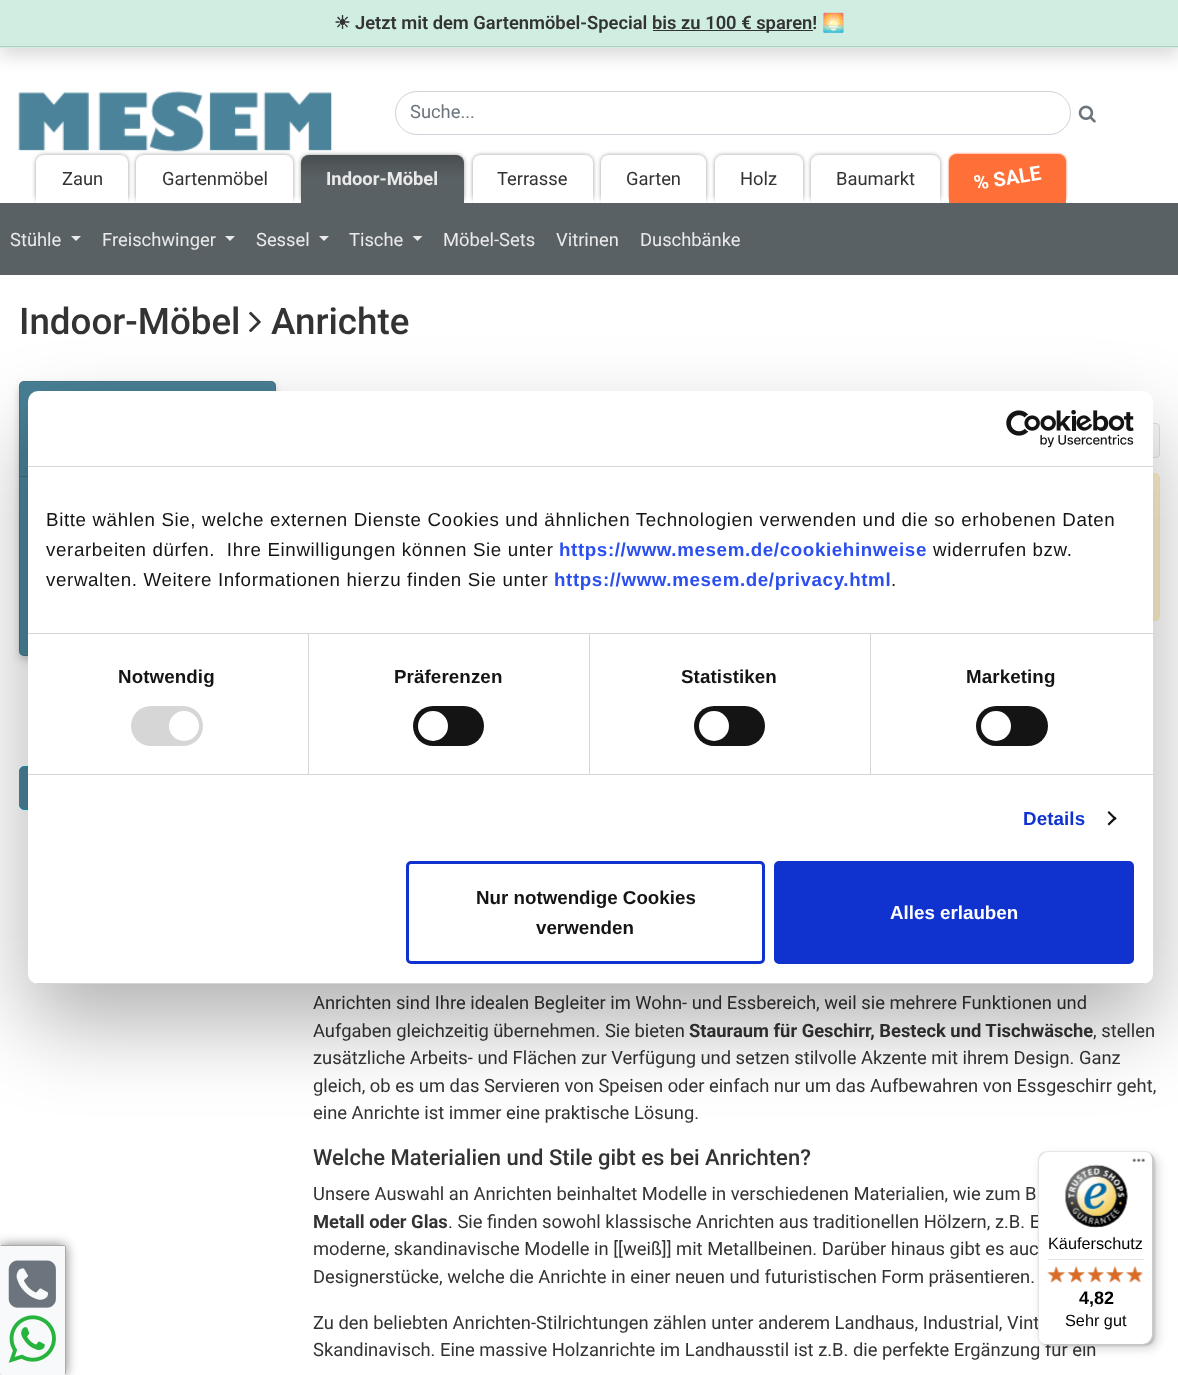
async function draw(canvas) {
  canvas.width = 1178
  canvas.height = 1375
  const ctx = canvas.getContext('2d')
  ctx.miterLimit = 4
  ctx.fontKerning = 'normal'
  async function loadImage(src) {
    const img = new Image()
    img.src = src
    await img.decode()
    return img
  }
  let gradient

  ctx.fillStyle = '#fff'
  ctx.fillRect(0, 0, 1178, 1375)
  ctx.fillStyle = '#00000026'
  ctx.filter = 'blur(9px)'
  ctx.beginPath()
  ctx.rect(0, 9, 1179, 47)
  ctx.fill()
  ctx.filter = 'none'
  ctx.fillStyle = '#cfede1'
  ctx.fillRect(0, 0, 1178, 48)
  ctx.fillStyle = '#b5ccc3'
  ctx.fillRect(0, 46, 1178, 1)
  ctx.font = 'bold 18.35px DejaVu Sans'
  ctx.fillStyle = '#333'
  ctx.fillText('☀', 334, 29)
  ctx.font = '600 18.35px Roboto'
  ctx.fillText('Jetzt mit dem Gartenmöbel-Special', 355, 29)
  ctx.fillRect(653, 30, 160, 1)
  ctx.fillText('bis zu 100 € sparen!', 652, 29)
  ctx.font = 'bold 18.35px Noto Color Emoji'
  ctx.fillText('🌅', 822, 29)
  ctx.drawImage(await loadImage('image0.png'), 18, 91, 314, 61)
  ctx.beginPath()
  ctx.roundRect(395.5, 91.5, 675, 43, 21.5)
  ctx.strokeStyle = '#ced4da'
  ctx.stroke()
  ctx.font = '18.35px Roboto'
  ctx.fillStyle = '#6c757d'
  ctx.fillText('Suche...', 410, 118)
  ctx.drawImage(await loadImage('image1.png'), 1078, 105, 18, 18)
  ctx.save()
  ctx.beginPath()
  ctx.moveTo(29, 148)
  ctx.lineTo(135, 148)
  ctx.lineTo(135, 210)
  ctx.lineTo(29, 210)
  ctx.closePath()
  ctx.moveTo(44, 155)
  ctx.lineTo(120, 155)
  ctx.bezierCurveTo(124.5, 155, 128, 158.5, 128, 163)
  ctx.lineTo(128, 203)
  ctx.lineTo(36, 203)
  ctx.lineTo(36, 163)
  ctx.bezierCurveTo(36, 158.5, 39.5, 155, 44, 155)
  ctx.closePath()
  ctx.clip('evenodd')
  ctx.fillStyle = '#00000066'
  ctx.filter = 'blur(2px)'
  ctx.beginPath()
  ctx.roundRect(36, 155, 92, 48, 8)
  ctx.fill()
  ctx.filter = 'none'
  ctx.restore()
  ctx.fillStyle = '#333'
  ctx.fillText('Zaun', 62, 185)
  ctx.save()
  ctx.beginPath()
  ctx.moveTo(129, 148)
  ctx.lineTo(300, 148)
  ctx.lineTo(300, 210)
  ctx.lineTo(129, 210)
  ctx.closePath()
  ctx.moveTo(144, 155)
  ctx.lineTo(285, 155)
  ctx.bezierCurveTo(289.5, 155, 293, 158.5, 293, 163)
  ctx.lineTo(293, 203)
  ctx.lineTo(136, 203)
  ctx.lineTo(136, 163)
  ctx.bezierCurveTo(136, 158.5, 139.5, 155, 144, 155)
  ctx.closePath()
  ctx.clip('evenodd')
  ctx.fillStyle = '#00000066'
  ctx.filter = 'blur(2px)'
  ctx.beginPath()
  ctx.roundRect(136, 155, 157, 48, 8)
  ctx.fill()
  ctx.filter = 'none'
  ctx.restore()
  ctx.fillText('Gartenmöbel', 162, 185)
  ctx.fillStyle = '#00000066'
  ctx.filter = 'blur(2px)'
  ctx.beginPath()
  ctx.roundRect(301, 155, 163, 48, 8)
  ctx.fill()
  ctx.filter = 'none'
  ctx.fillStyle = '#5a6164'
  ctx.beginPath()
  ctx.roundRect(301, 155, 163, 48, [8, 8, 0, 0])
  ctx.fill()
  gradient = ctx.createLinearGradient(383, 203, 383, 155)
  gradient.addColorStop(0.5, '#00000000')
  gradient.addColorStop(1, '#00000033')
  ctx.fillStyle = gradient
  ctx.beginPath()
  ctx.roundRect(301, 155, 163, 48, [8, 8, 0, 0])
  ctx.fill()
  ctx.font = 'bold 18.35px Roboto'
  ctx.fillStyle = '#eaeaea'
  ctx.fillText('Indoor-Möbel', 326, 185)
  ctx.save()
  ctx.beginPath()
  ctx.moveTo(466, 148)
  ctx.lineTo(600, 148)
  ctx.lineTo(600, 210)
  ctx.lineTo(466, 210)
  ctx.closePath()
  ctx.moveTo(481, 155)
  ctx.lineTo(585, 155)
  ctx.bezierCurveTo(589.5, 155, 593, 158.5, 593, 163)
  ctx.lineTo(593, 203)
  ctx.lineTo(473, 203)
  ctx.lineTo(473, 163)
  ctx.bezierCurveTo(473, 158.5, 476.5, 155, 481, 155)
  ctx.closePath()
  ctx.clip('evenodd')
  ctx.fillStyle = '#00000066'
  ctx.filter = 'blur(2px)'
  ctx.beginPath()
  ctx.roundRect(473, 155, 120, 48, 8)
  ctx.fill()
  ctx.filter = 'none'
  ctx.restore()
  ctx.font = '18.35px Roboto'
  ctx.fillStyle = '#333'
  ctx.fillText('Terrasse', 497, 185)
  ctx.save()
  ctx.beginPath()
  ctx.moveTo(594, 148)
  ctx.lineTo(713, 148)
  ctx.lineTo(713, 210)
  ctx.lineTo(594, 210)
  ctx.closePath()
  ctx.moveTo(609, 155)
  ctx.lineTo(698, 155)
  ctx.bezierCurveTo(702.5, 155, 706, 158.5, 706, 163)
  ctx.lineTo(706, 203)
  ctx.lineTo(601, 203)
  ctx.lineTo(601, 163)
  ctx.bezierCurveTo(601, 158.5, 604.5, 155, 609, 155)
  ctx.closePath()
  ctx.clip('evenodd')
  ctx.fillStyle = '#00000066'
  ctx.filter = 'blur(2px)'
  ctx.beginPath()
  ctx.roundRect(601, 155, 105, 48, 8)
  ctx.fill()
  ctx.filter = 'none'
  ctx.restore()
  ctx.fillText('Garten', 626, 185)
  ctx.save()
  ctx.beginPath()
  ctx.moveTo(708, 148)
  ctx.lineTo(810, 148)
  ctx.lineTo(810, 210)
  ctx.lineTo(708, 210)
  ctx.closePath()
  ctx.moveTo(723, 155)
  ctx.lineTo(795, 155)
  ctx.bezierCurveTo(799.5, 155, 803, 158.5, 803, 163)
  ctx.lineTo(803, 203)
  ctx.lineTo(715, 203)
  ctx.lineTo(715, 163)
  ctx.bezierCurveTo(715, 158.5, 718.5, 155, 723, 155)
  ctx.closePath()
  ctx.clip('evenodd')
  ctx.fillStyle = '#00000066'
  ctx.filter = 'blur(2px)'
  ctx.beginPath()
  ctx.roundRect(715, 155, 88, 48, 8)
  ctx.fill()
  ctx.filter = 'none'
  ctx.restore()
  ctx.fillText('Holz', 740, 185)
  ctx.save()
  ctx.beginPath()
  ctx.moveTo(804, 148)
  ctx.lineTo(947, 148)
  ctx.lineTo(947, 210)
  ctx.lineTo(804, 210)
  ctx.closePath()
  ctx.moveTo(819, 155)
  ctx.lineTo(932, 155)
  ctx.bezierCurveTo(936.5, 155, 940, 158.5, 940, 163)
  ctx.lineTo(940, 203)
  ctx.lineTo(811, 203)
  ctx.lineTo(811, 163)
  ctx.bezierCurveTo(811, 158.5, 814.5, 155, 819, 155)
  ctx.closePath()
  ctx.clip('evenodd')
  ctx.fillStyle = '#00000066'
  ctx.filter = 'blur(2px)'
  ctx.beginPath()
  ctx.roundRect(811, 155, 129, 48, 8)
  ctx.fill()
  ctx.filter = 'none'
  ctx.restore()
  ctx.fillText('Baumarkt', 836, 185)
  ctx.fillStyle = '#ff6224'
  ctx.filter = 'blur(1px)'
  ctx.beginPath()
  ctx.roundRect(949, 154, 117, 50, 8)
  ctx.fill()
  ctx.filter = 'none'
  ctx.fillStyle = '#ff7038'
  ctx.beginPath()
  ctx.roundRect(949, 154, 117, 50, [8, 8, 0, 0])
  ctx.fill()
  ctx.font = 'bold 20px Roboto'
  ctx.fillStyle = '#fff'
  ctx.save()
  ctx.translate(975, 190)
  ctx.rotate(-9 * Math.PI / 180)
  ctx.fillText('% SALE', 0, 0)
  ctx.restore()
  ctx.fillStyle = '#5a6164'
  ctx.fillRect(0, 203, 1178, 72)
  ctx.font = '18.35px Roboto'
  ctx.fillStyle = '#eaeaea'
  ctx.fillText('Stühle', 10, 246)
  ctx.beginPath()
  ctx.moveTo(71, 236)
  ctx.lineTo(81, 236)
  ctx.lineTo(76, 241)
  ctx.closePath()
  ctx.fill()
  ctx.fillText('Freischwinger', 102, 246)
  ctx.beginPath()
  ctx.moveTo(225, 236)
  ctx.lineTo(235, 236)
  ctx.lineTo(230, 241)
  ctx.closePath()
  ctx.fill()
  ctx.fillText('Sessel', 256, 246)
  ctx.beginPath()
  ctx.moveTo(319, 236)
  ctx.lineTo(329, 236)
  ctx.lineTo(324, 241)
  ctx.closePath()
  ctx.fill()
  ctx.fillText('Tische', 349, 246)
  ctx.beginPath()
  ctx.moveTo(412.5, 236)
  ctx.lineTo(422.5, 236)
  ctx.lineTo(417.5, 241)
  ctx.closePath()
  ctx.fill()
  ctx.fillText('Möbel-Sets', 443, 246)
  ctx.fillText('Vitrinen', 556, 246)
  ctx.fillText('Duschbänke', 640, 246)
  ctx.font = '500 36.75px Roboto'
  ctx.fillStyle = '#333'
  ctx.fillText('Indoor-Möbel', 19, 334)
  ctx.drawImage(await loadImage('image2.png'), 249, 311, 12, 22)
  ctx.fillText('Anrichte', 271, 334)
  ctx.fillStyle = '#00000014'
  ctx.filter = 'blur(2.5px)'
  ctx.beginPath()
  ctx.roundRect(19, 384, 257, 275, 5)
  ctx.fill()
  ctx.filter = 'none'
  ctx.fillStyle = '#0000001f'
  ctx.filter = 'blur(5px)'
  ctx.beginPath()
  ctx.roundRect(19, 386, 257, 275, 5)
  ctx.fill()
  ctx.filter = 'none'
  ctx.fillStyle = '#4b849a'
  ctx.beginPath()
  ctx.roundRect(19, 381, 257, 275, 5)
  ctx.fill()
  ctx.beginPath()
  ctx.roundRect(19.5, 381.5, 256, 274, 4.5)
  ctx.strokeStyle = '#0000001f'
  ctx.stroke()
  ctx.fillStyle = '#00000008'
  ctx.fillRect(20, 383, 255, 95)
  ctx.fillStyle = '#407083'
  ctx.fillRect(20, 476, 8, 1)
  ctx.fillStyle = '#4b849a'
  ctx.beginPath()
  ctx.roundRect(19.5, 766.5, 256, 43, 4.5)
  ctx.fill()
  ctx.strokeStyle = '#17a2b8'
  ctx.stroke()
  ctx.fillStyle = '#f8f9fa'
  ctx.beginPath()
  ctx.roundRect(1030.5, 423.5, 129, 34, 3.5)
  ctx.fill()
  ctx.strokeStyle = '#dee2e6'
  ctx.stroke()
  ctx.fillStyle = '#fff3cd'
  ctx.beginPath()
  ctx.roundRect(314.5, 473.5, 845, 147, 4.5)
  ctx.fill()
  ctx.strokeStyle = '#ffeeba'
  ctx.stroke()
  ctx.font = '18.35px Roboto'
  ctx.fillStyle = '#333'
  ctx.fillText('Anrichten sind Ihre idealen Begleiter im Wohn- und Essbereich, weil sie mehrere Funktionen und', 313, 1009)
  ctx.fillText('Aufgaben gleichzeitig übernehmen. Sie bieten', 313, 1037)
  ctx.font = 'bold 18.35px Roboto'
  ctx.fillText('Stauraum für Geschirr, Besteck und Tischwäsche', 689, 1037)
  ctx.font = '18.35px Roboto'
  ctx.fillText(', stellen', 1093, 1037)
  ctx.fillText('zusätzliche Arbeits- und Flächen zur Verfügung und setzen stilvolle Akzente mit ihrem Design. Ganz', 313, 1064)
  ctx.fillText('gleich, ob es um das Servieren von Speisen oder einfach nur um das Aufbewahren von Essgeschirr geht,', 313, 1092)
  ctx.fillText('eine Anrichte ist immer eine praktische Lösung.', 313, 1119)
  ctx.font = '500 22px Roboto'
  ctx.fillText('Welche Materialien und Stile gibt es bei Anrichten?', 313, 1165)
  ctx.font = '18.35px Roboto'
  ctx.fillText('Unsere Auswahl an Anrichten beinhaltet Modelle in verschiedenen Materialien, wie zum B', 313, 1200)
  ctx.font = 'bold 18.35px Roboto'
  ctx.fillText('Metall oder Glas', 313, 1228)
  ctx.font = '18.35px Roboto'
  ctx.fillText('. Sie finden sowohl klassische Anrichten aus traditionellen Hölzern, z.B. E', 448, 1228)
  ctx.fillText('moderne, skandinavische Modelle in [[weiß]] mit Metallbeinen. Darüber hinaus gibt es auc', 313, 1255)
  ctx.fillText('Designerstücke, welche die Anrichte in einer neuen und futuristischen Form präsentieren.', 313, 1283)
  ctx.fillText('Zu den beliebten Anrichten-Stilrichtungen zählen unter anderem Landhaus, Industrial, Vint', 313, 1329)
  ctx.fillText('Skandinavisch. Eine massive Holzanrichte im Landhausstil ist z.B. die perfekte Ergänzung für ein', 313, 1356)
  ctx.fillStyle = '#0000004d'
  ctx.filter = 'blur(42.5px)'
  ctx.beginPath()
  ctx.roundRect(28, 431, 1125, 593, 10)
  ctx.fill()
  ctx.filter = 'none'
  ctx.fillStyle = '#fff'
  ctx.beginPath()
  ctx.roundRect(28, 391, 1125, 593, 10)
  ctx.fill()
  ctx.fillStyle = '#d6d6d6'
  ctx.fillRect(28, 466, 1125, 1)
  ctx.drawImage(await loadImage('image3.png'), 1006, 410, 128, 38)
  ctx.fillRect(28, 633, 1125, 1)
  ctx.letterSpacing = '0.62px'
  ctx.font = '18.75px Liberation Sans'
  ctx.fillStyle = '#141414'
  ctx.fillText('Bitte wählen Sie, welche externen Dienste Cookies und ähnlichen Technologien verwenden und die so erhobenen Daten', 46, 526)
  ctx.fillText('verarbeiten dürfen.  Ihre Einwilligungen können Sie unter', 46, 556)
  ctx.font = 'bold 18.75px Liberation Sans'
  ctx.fillStyle = '#2a4eef'
  ctx.fillText('https://www.mesem.de/cookiehinweise', 559, 556)
  ctx.font = '18.75px Liberation Sans'
  ctx.fillStyle = '#141414'
  ctx.fillText('widerrufen bzw.', 933, 556)
  ctx.fillText('verwalten. Weitere Informationen hierzu finden Sie unter', 46, 586)
  ctx.font = 'bold 18.75px Liberation Sans'
  ctx.fillStyle = '#2a4eef'
  ctx.fillText('https://www.mesem.de/privacy.html', 554, 586)
  ctx.font = '18.75px Liberation Sans'
  ctx.fillStyle = '#141414'
  ctx.fillText('.', 891, 586)
  ctx.fillStyle = '#d6d6d6'
  ctx.fillRect(28, 774, 1125, 1)
  ctx.fillRect(308, 634, 1, 140)
  ctx.letterSpacing = '0.1px'
  ctx.font = 'bold 18.75px Liberation Sans'
  ctx.fillStyle = '#141414'
  ctx.fillText('Notwendig', 118, 683)
  ctx.fillStyle = '#d6d6d6'
  ctx.beginPath()
  ctx.roundRect(131, 706, 72, 40, 20)
  ctx.fill()
  ctx.fillStyle = '#fff'
  ctx.beginPath()
  ctx.arc(184, 726, 15, 0, 2 * Math.PI)
  ctx.fill()
  ctx.fillStyle = '#d6d6d6'
  ctx.fillRect(589, 634, 1, 140)
  ctx.fillStyle = '#141414'
  ctx.fillText('Präferenzen', 394, 683)
  ctx.beginPath()
  ctx.roundRect(413, 706, 71, 40, 20)
  ctx.fill()
  ctx.fillStyle = '#fff'
  ctx.beginPath()
  ctx.arc(433, 726, 15, 0, 2 * Math.PI)
  ctx.fill()
  ctx.fillStyle = '#d6d6d6'
  ctx.fillRect(870, 634, 1, 140)
  ctx.fillStyle = '#141414'
  ctx.fillText('Statistiken', 681, 683)
  ctx.beginPath()
  ctx.roundRect(694, 706, 71, 40, 20)
  ctx.fill()
  ctx.fillStyle = '#fff'
  ctx.beginPath()
  ctx.arc(714, 726, 15, 0, 2 * Math.PI)
  ctx.fill()
  ctx.fillStyle = '#141414'
  ctx.fillText('Marketing', 966, 683)
  ctx.beginPath()
  ctx.roundRect(976, 706, 72, 40, 20)
  ctx.fill()
  ctx.fillStyle = '#fff'
  ctx.beginPath()
  ctx.arc(996, 726, 15, 0, 2 * Math.PI)
  ctx.fill()
  ctx.fillStyle = '#1032cf'
  ctx.fillText('Details', 1023, 825)
  ctx.fillStyle = '#141414'
  ctx.beginPath()
  ctx.moveTo(1109, 811)
  ctx.lineTo(1116.5, 818.5)
  ctx.lineTo(1115, 820)
  ctx.lineTo(1107.5, 812.5)
  ctx.closePath()
  ctx.fill()
  ctx.beginPath()
  ctx.moveTo(1115, 816.5)
  ctx.lineTo(1116.5, 818.5)
  ctx.lineTo(1109, 825.5)
  ctx.lineTo(1107.5, 824)
  ctx.closePath()
  ctx.fill()
  ctx.save()
  ctx.beginPath()
  ctx.roundRect(28, 391, 1125, 593, 10)
  ctx.clip()
  ctx.fillStyle = '#d6d6d6'
  ctx.fillRect(28, 983, 1125, 1)
  ctx.restore()
  ctx.beginPath()
  ctx.roundRect(407.5, 862.5, 356, 100, 3.5)
  ctx.strokeStyle = '#1032cf'
  ctx.lineWidth = 3
  ctx.stroke()
  ctx.letterSpacing = '0px'
  ctx.fillText('Nur notwendige Cookies', 476, 904)
  ctx.fillText('verwenden', 536, 934)
  ctx.fillStyle = '#1032cf'
  ctx.beginPath()
  ctx.roundRect(775.5, 862.5, 357, 100, 3.5)
  ctx.fill()
  ctx.stroke()
  ctx.fillStyle = '#fff'
  ctx.fillText('Alles erlauben', 890, 919)
  ctx.fillStyle = '#00000080'
  ctx.filter = 'blur(6px)'
  ctx.beginPath()
  ctx.roundRect(0, 1245, 66, 130, 2.5)
  ctx.fill()
  ctx.filter = 'none'
  ctx.fillStyle = '#f8f9fa'
  ctx.beginPath()
  ctx.roundRect(0, 1245, 66, 130, 2.5)
  ctx.fill()
  ctx.fillStyle = '#aaa'
  ctx.fillRect(1, 1245, 64, 1)
  ctx.fillRect(65, 1246, 1, 128)
  ctx.drawImage(await loadImage('image4.png'), 8, 1260, 48, 48)
  ctx.drawImage(await loadImage('image5.png'), 8, 1315, 48, 48)
  ctx.fillStyle = '#00000026'
  ctx.filter = 'blur(5px)'
  ctx.beginPath()
  ctx.roundRect(1041, 1155, 117, 194, 10)
  ctx.fill()
  ctx.filter = 'none'
  ctx.filter = 'blur(1px)'
  ctx.beginPath()
  ctx.roundRect(1039, 1153, 116, 193, 10)
  ctx.fill()
  ctx.filter = 'none'
  ctx.fillStyle = '#fff'
  ctx.beginPath()
  ctx.roundRect(1038, 1151, 116, 194, 10)
  ctx.fill()
  ctx.fillStyle = '#0000001a'
  ctx.beginPath()
  ctx.moveTo(1049, 1152)
  ctx.lineTo(1145, 1152)
  ctx.bezierCurveTo(1148, 1152, 1150, 1153, 1152, 1154)
  ctx.bezierCurveTo(1150, 1152, 1147, 1151, 1144, 1151)
  ctx.lineTo(1048, 1151)
  ctx.bezierCurveTo(1042, 1151, 1038, 1155, 1038, 1161)
  ctx.lineTo(1038, 1335)
  ctx.bezierCurveTo(1038, 1337, 1039, 1340, 1040, 1341)
  ctx.bezierCurveTo(1039, 1340, 1039, 1338, 1039, 1336)
  ctx.lineTo(1039, 1162)
  ctx.bezierCurveTo(1039, 1157, 1043, 1152, 1049, 1152)
  ctx.closePath()
  ctx.fill()
  ctx.fillStyle = '#00000033'
  ctx.beginPath()
  ctx.moveTo(1042, 1343)
  ctx.bezierCurveTo(1044, 1344, 1046, 1345, 1048, 1345)
  ctx.lineTo(1144, 1345)
  ctx.bezierCurveTo(1150, 1345, 1154, 1341, 1154, 1335)
  ctx.lineTo(1154, 1161)
  ctx.bezierCurveTo(1154, 1157, 1152, 1154, 1148, 1152)
  ctx.bezierCurveTo(1151, 1154, 1152, 1157, 1152, 1160)
  ctx.lineTo(1152, 1334)
  ctx.bezierCurveTo(1152, 1339, 1148, 1344, 1142, 1344)
  ctx.lineTo(1046, 1344)
  ctx.bezierCurveTo(1045, 1344, 1043, 1344, 1042, 1343)
  ctx.closePath()
  ctx.fill()
  ctx.fillStyle = '#32323233'
  ctx.beginPath()
  ctx.moveTo(1042, 1343)
  ctx.bezierCurveTo(1043, 1344, 1046, 1345, 1048, 1345)
  ctx.lineTo(1144, 1345)
  ctx.bezierCurveTo(1150, 1345, 1154, 1341, 1154, 1335)
  ctx.lineTo(1154, 1161)
  ctx.bezierCurveTo(1154, 1158, 1153, 1155, 1150, 1153)
  ctx.bezierCurveTo(1152, 1155, 1153, 1158, 1153, 1160)
  ctx.lineTo(1153, 1334)
  ctx.bezierCurveTo(1153, 1340, 1149, 1344, 1143, 1344)
  ctx.lineTo(1047, 1344)
  ctx.bezierCurveTo(1045, 1344, 1043, 1344, 1042, 1343)
  ctx.closePath()
  ctx.fill()
  ctx.fillStyle = '#ffffff4d'
  ctx.beginPath()
  ctx.moveTo(1042, 1343)
  ctx.bezierCurveTo(1043, 1344, 1046, 1345, 1048, 1345)
  ctx.lineTo(1144, 1345)
  ctx.bezierCurveTo(1150, 1345, 1154, 1341, 1154, 1335)
  ctx.lineTo(1154, 1161)
  ctx.bezierCurveTo(1154, 1155, 1150, 1151, 1144, 1151)
  ctx.lineTo(1143, 1151)
  ctx.bezierCurveTo(1149, 1151, 1153, 1155, 1153, 1161)
  ctx.lineTo(1153, 1334)
  ctx.bezierCurveTo(1153, 1340, 1149, 1344, 1143, 1344)
  ctx.lineTo(1047, 1344)
  ctx.bezierCurveTo(1045, 1344, 1043, 1344, 1042, 1343)
  ctx.closePath()
  ctx.fill()
  ctx.drawImage(await loadImage('image6.png'), 1132, 1158, 13, 4)
  ctx.drawImage(await loadImage('image7.png'), 1065, 1164, 63, 64)
  ctx.font = '16.25px Liberation Sans'
  ctx.fillStyle = '#000'
  ctx.fillText('Käuferschutz', 1048, 1249)
  ctx.fillStyle = '#e5e5e5'
  ctx.fillRect(1048, 1259, 96, 1)
  ctx.drawImage(await loadImage('image13.png'), 1048, 1266, 17, 16)
  ctx.drawImage(await loadImage('image8.png'), 1047, 1266, 18, 17)
  ctx.drawImage(await loadImage('image14.png'), 1068, 1266, 17, 17)
  ctx.drawImage(await loadImage('image9.png'), 1067, 1266, 18, 17)
  ctx.drawImage(await loadImage('image15.png'), 1087, 1266, 17, 16)
  ctx.drawImage(await loadImage('image10.png'), 1087, 1266, 17, 17)
  ctx.drawImage(await loadImage('image16.png'), 1106, 1266, 18, 17)
  ctx.drawImage(await loadImage('image11.png'), 1106, 1266, 18, 17)
  ctx.drawImage(await loadImage('image17.png'), 1126, 1266, 18, 16)
  ctx.drawImage(await loadImage('image12.png'), 1126, 1266, 16, 17)
  ctx.font = 'bold 18px Liberation Sans'
  ctx.fillStyle = '#000'
  ctx.fillText('4,82', 1079, 1304)
  ctx.font = '16.25px Liberation Sans'
  ctx.fillText('Sehr gut', 1065, 1326)
}

draw(document.querySelector('canvas'))
